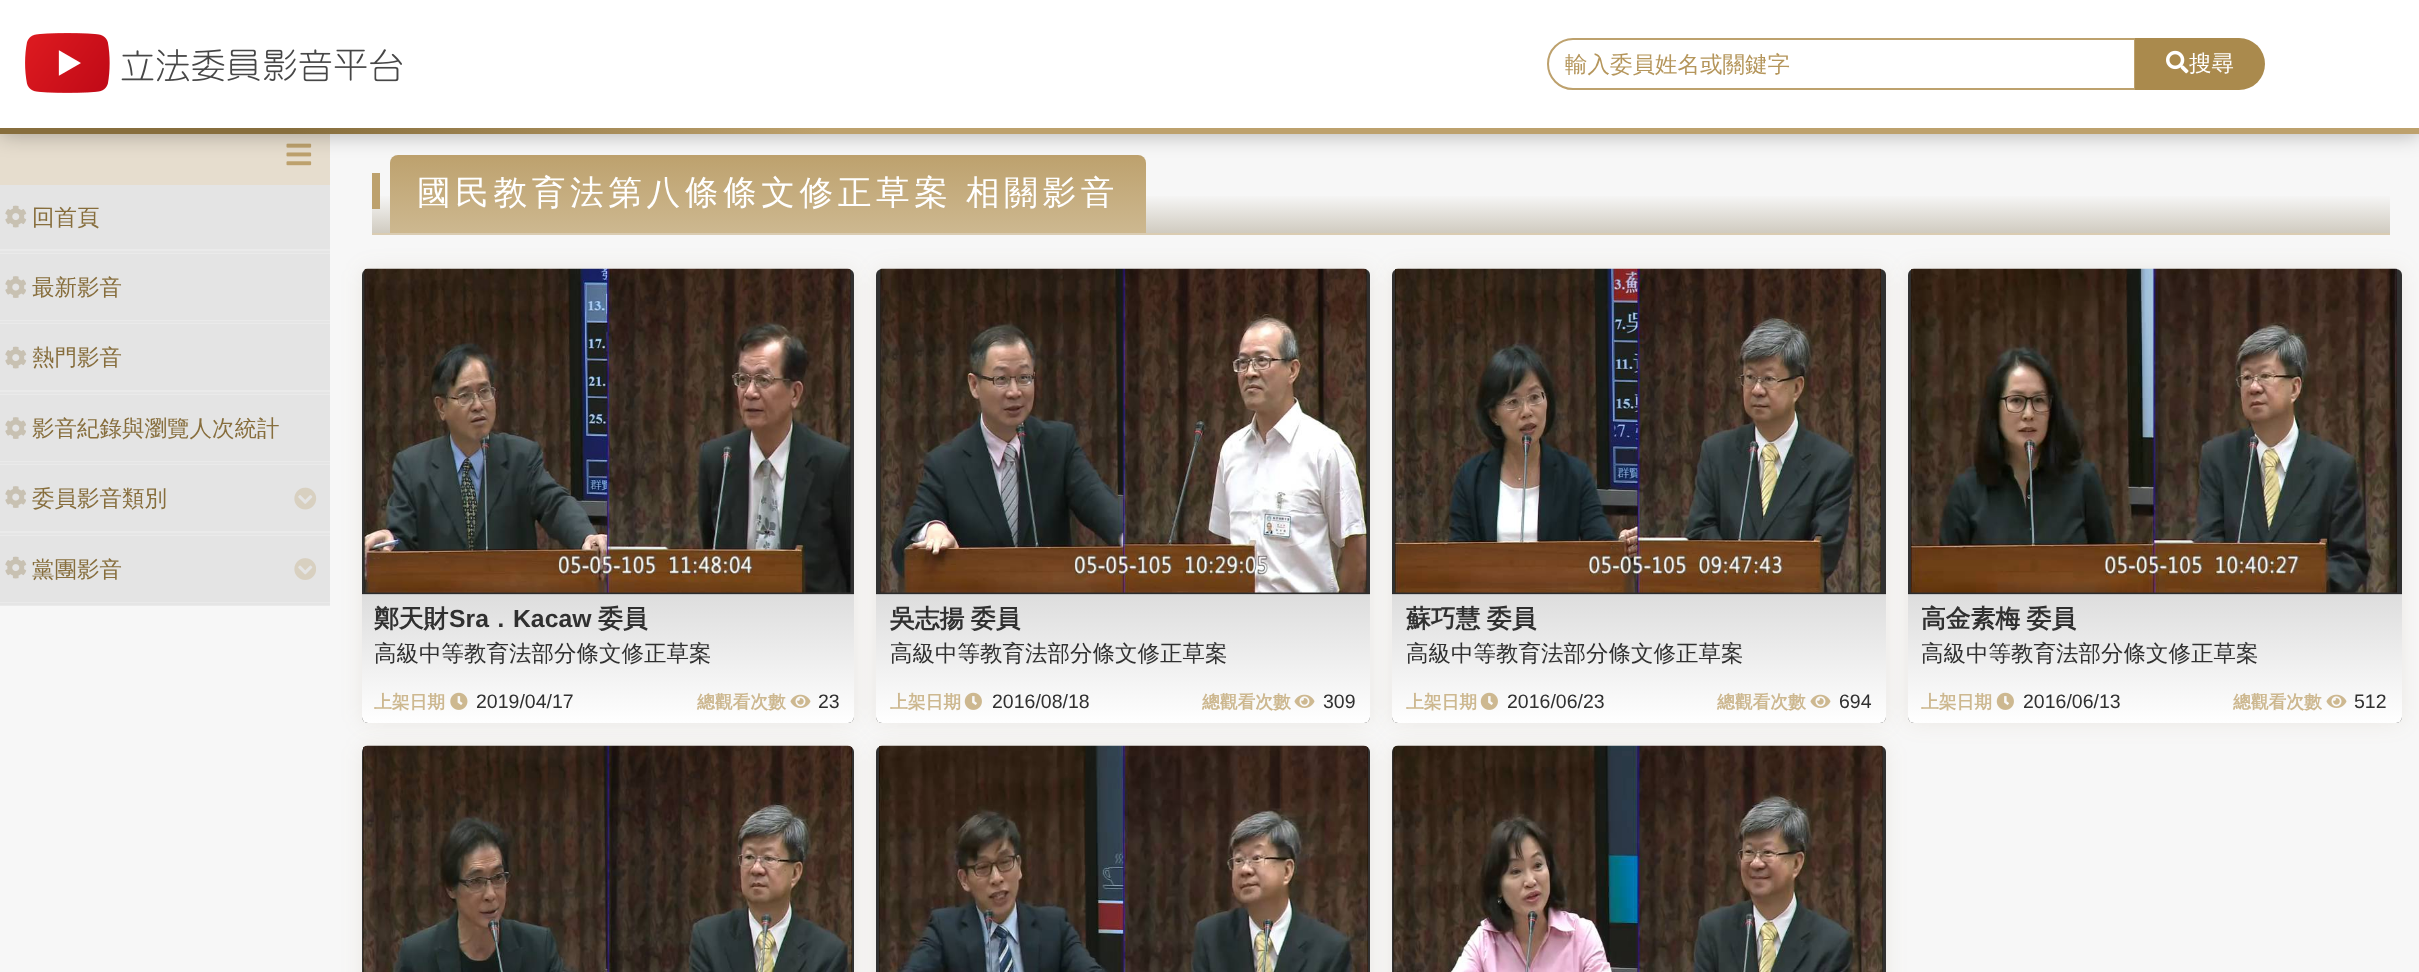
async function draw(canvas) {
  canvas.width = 2419
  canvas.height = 972
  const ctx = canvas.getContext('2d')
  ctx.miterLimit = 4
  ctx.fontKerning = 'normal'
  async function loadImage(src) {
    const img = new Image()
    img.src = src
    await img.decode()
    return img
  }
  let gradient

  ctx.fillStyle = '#f7f7f7'
  ctx.fillRect(0, 0, 2419, 972)
  ctx.fillStyle = '#e6ddce'
  ctx.fillRect(0, 134, 330, 51)
  ctx.drawImage(await loadImage('image2.png'), 286, 143, 26, 23)
  gradient = ctx.createLinearGradient(1381, 154, 1381, 233)
  gradient.addColorStop(0.5, '#f8f8f8')
  gradient.addColorStop(1, '#d0cbc0')
  ctx.fillStyle = gradient
  ctx.fillRect(372, 196, 2018, 37)
  gradient = ctx.createLinearGradient(768, 154, 768, 233)
  gradient.addColorStop(0, '#bda16d')
  gradient.addColorStop(1, '#cdb890')
  ctx.fillStyle = gradient
  ctx.beginPath()
  ctx.roundRect(390, 155, 756, 78, [8, 8, 0, 0])
  ctx.fill()
  ctx.fillStyle = '#0000004d'
  ctx.filter = 'blur(11px)'
  ctx.beginPath()
  ctx.rect(0, 0, 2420, 134)
  ctx.fill()
  ctx.filter = 'none'
  gradient = ctx.createLinearGradient(0, 67, 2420, 67)
  gradient.addColorStop(0.12, '#876e3d')
  gradient.addColorStop(0.34, '#bda16d')
  ctx.fillStyle = gradient
  ctx.fillRect(0, 128, 2419, 6)
  ctx.fillStyle = '#fff'
  ctx.fillRect(0, 0, 2419, 128)
  ctx.drawImage(await loadImage('image0.png'), 25, 33, 377, 60)
  ctx.beginPath()
  ctx.roundRect(1548, 39, 587, 50, [25, 0, 0, 25])
  ctx.strokeStyle = '#bda16d'
  ctx.lineWidth = 2
  ctx.stroke()
  ctx.font = '500 22.5px WenQuanYi Zen Hei'
  ctx.fillStyle = '#b5965c'
  ctx.fillText('輸入委員姓名或關鍵字', 1565, 72)
  ctx.fillStyle = '#aa8a4d'
  ctx.beginPath()
  ctx.roundRect(2135, 38, 130, 52, [0, 26, 26, 0])
  ctx.fill()
  ctx.drawImage(await loadImage('image1.png'), 2166, 50, 23, 24)
  ctx.fillStyle = '#fff'
  ctx.fillText('搜尋', 2189, 71)
  ctx.fillStyle = '#eaeaea'
  ctx.fillRect(0, 249, 330, 357)
  ctx.fillStyle = '#e5e5e5'
  ctx.fillRect(0, 251, 330, 2)
  ctx.fillStyle = '#e4e4e4'
  ctx.fillRect(0, 185, 330, 64)
  ctx.drawImage(await loadImage('image3.png'), 5, 205, 22, 23)
  ctx.fillStyle = '#876e3d'
  ctx.fillText('回首頁', 32, 225)
  ctx.fillStyle = '#e5e5e5'
  ctx.fillRect(0, 321, 330, 2)
  ctx.fillStyle = '#e4e4e4'
  ctx.fillRect(0, 254, 330, 66)
  ctx.drawImage(await loadImage('image4.png'), 5, 276, 21, 22)
  ctx.fillStyle = '#876e3d'
  ctx.fillText('最新影音', 32, 295)
  ctx.fillStyle = '#e5e5e5'
  ctx.fillRect(0, 392, 330, 2)
  ctx.fillStyle = '#e4e4e4'
  ctx.fillRect(0, 324, 330, 66)
  ctx.drawImage(await loadImage('image3.png'), 5, 346, 22, 23)
  ctx.fillStyle = '#876e3d'
  ctx.fillText('熱門影音', 32, 365)
  ctx.fillStyle = '#e5e5e5'
  ctx.fillRect(0, 462, 330, 2)
  ctx.fillStyle = '#e4e4e4'
  ctx.fillRect(0, 395, 330, 66)
  ctx.drawImage(await loadImage('image4.png'), 5, 417, 21, 22)
  ctx.fillStyle = '#876e3d'
  ctx.fillText('影音紀錄與瀏覽人次統計', 32, 436)
  ctx.fillStyle = '#e5e5e5'
  ctx.fillRect(0, 533, 330, 2)
  ctx.fillStyle = '#e4e4e4'
  ctx.fillRect(0, 465, 330, 66)
  ctx.drawImage(await loadImage('image4.png'), 5, 486, 21, 22)
  ctx.fillStyle = '#876e3d'
  ctx.fillText('委員影音類別', 32, 506)
  ctx.drawImage(await loadImage('image5.png'), 294, 487, 23, 23)
  ctx.fillStyle = '#e5e5e5'
  ctx.fillRect(0, 603, 330, 2)
  ctx.fillStyle = '#e4e4e4'
  ctx.fillRect(0, 536, 330, 66)
  ctx.drawImage(await loadImage('image3.png'), 5, 556, 22, 23)
  ctx.fillStyle = '#876e3d'
  ctx.fillText('黨團影音', 32, 577)
  ctx.drawImage(await loadImage('image6.png'), 294, 558, 22, 22)
  ctx.fillStyle = '#daccb2'
  ctx.fillRect(372, 233, 2018, 2)
  ctx.fillStyle = '#bda16d'
  ctx.fillRect(372, 173, 8, 36)
  ctx.letterSpacing = '4.5px'
  ctx.wordSpacing = '-1px'
  ctx.font = '500 33.75px WenQuanYi Zen Hei'
  ctx.fillStyle = '#fff'
  ctx.fillText('國民教育法第八條條文修正草案 相關影音', 417, 204)
  ctx.fillStyle = '#876e3d1a'
  ctx.filter = 'blur(10.5px)'
  ctx.beginPath()
  ctx.roundRect(362, 269, 492, 454, 6)
  ctx.fill()
  ctx.filter = 'none'
  ctx.fillStyle = '#303030'
  ctx.beginPath()
  ctx.roundRect(362, 269, 492, 454, 6)
  ctx.fill()
  ctx.drawImage(await loadImage('image7.png'), 364, 268, 487, 325)
  gradient = ctx.createLinearGradient(608, 594, 608, 723)
  gradient.addColorStop(0, '#ddd')
  gradient.addColorStop(1, '#fff')
  ctx.fillStyle = gradient
  ctx.beginPath()
  ctx.roundRect(362, 594, 492, 129, [0, 0, 6, 6])
  ctx.fill()
  ctx.fillStyle = '#0000001f'
  ctx.fillRect(362, 593, 492, 2)
  ctx.letterSpacing = '0px'
  ctx.wordSpacing = '0px'
  ctx.font = 'bold 24.75px WenQuanYi Zen Hei'
  ctx.fillStyle = '#303030'
  ctx.fillText('鄭天財', 374, 627)
  ctx.font = 'bold 24.75px Liberation Sans'
  ctx.fillText('Sra', 449, 627)
  ctx.font = 'bold 24.75px WenQuanYi Zen Hei'
  ctx.fillText('．', 488, 627)
  ctx.font = 'bold 24.75px Liberation Sans'
  ctx.fillText('Kacaw', 513, 627)
  ctx.font = 'bold 24.75px WenQuanYi Zen Hei'
  ctx.fillText('委員', 598, 627)
  ctx.font = '500 22.5px WenQuanYi Zen Hei'
  ctx.fillText('高級中等教育法部分條文修正草案', 374, 661)
  ctx.drawImage(await loadImage('image8.png'), 450, 692, 18, 18)
  ctx.font = 'bold 17.75px WenQuanYi Zen Hei'
  ctx.fillStyle = '#cdb890'
  ctx.fillText('上架日期', 374, 708)
  ctx.font = '19.5px Liberation Sans'
  ctx.fillStyle = '#303030'
  ctx.fillText('2019/04/17', 476, 708)
  ctx.drawImage(await loadImage('image9.png'), 790, 694, 21, 14)
  ctx.font = 'bold 17.75px WenQuanYi Zen Hei'
  ctx.fillStyle = '#cdb890'
  ctx.fillText('總觀看次數', 697, 708)
  ctx.font = '19.5px Liberation Sans'
  ctx.fillStyle = '#303030'
  ctx.fillText('23', 818, 708)
  ctx.fillStyle = '#876e3d1a'
  ctx.filter = 'blur(10.5px)'
  ctx.beginPath()
  ctx.roundRect(876, 269, 494, 454, 6)
  ctx.fill()
  ctx.filter = 'none'
  ctx.fillStyle = '#303030'
  ctx.beginPath()
  ctx.roundRect(876, 269, 494, 454, 6)
  ctx.fill()
  ctx.drawImage(await loadImage('image10.png'), 880, 268, 487, 325)
  gradient = ctx.createLinearGradient(1123, 594, 1123, 723)
  gradient.addColorStop(0, '#ddd')
  gradient.addColorStop(1, '#fff')
  ctx.fillStyle = gradient
  ctx.beginPath()
  ctx.roundRect(876, 594, 494, 129, [0, 0, 6, 6])
  ctx.fill()
  ctx.fillStyle = '#0000001f'
  ctx.fillRect(876, 593, 494, 2)
  ctx.wordSpacing = '-1px'
  ctx.font = 'bold 24.75px WenQuanYi Zen Hei'
  ctx.fillStyle = '#303030'
  ctx.fillText('吳志揚 委員', 890, 627)
  ctx.wordSpacing = '0px'
  ctx.font = '500 22.5px WenQuanYi Zen Hei'
  ctx.fillText('高級中等教育法部分條文修正草案', 890, 661)
  ctx.drawImage(await loadImage('image11.png'), 964, 692, 18, 18)
  ctx.font = 'bold 17.75px WenQuanYi Zen Hei'
  ctx.fillStyle = '#cdb890'
  ctx.fillText('上架日期', 890, 708)
  ctx.font = '19.5px Liberation Sans'
  ctx.fillStyle = '#303030'
  ctx.fillText('2016/08/18', 992, 708)
  ctx.drawImage(await loadImage('image9.png'), 1294, 694, 21, 14)
  ctx.font = 'bold 17.75px WenQuanYi Zen Hei'
  ctx.fillStyle = '#cdb890'
  ctx.fillText('總觀看次數', 1202, 708)
  ctx.font = '19.5px Liberation Sans'
  ctx.fillStyle = '#303030'
  ctx.fillText('309', 1323, 708)
  ctx.fillStyle = '#876e3d1a'
  ctx.filter = 'blur(10.5px)'
  ctx.beginPath()
  ctx.roundRect(1392, 269, 494, 454, 6)
  ctx.fill()
  ctx.filter = 'none'
  ctx.fillStyle = '#303030'
  ctx.beginPath()
  ctx.roundRect(1392, 269, 494, 454, 6)
  ctx.fill()
  ctx.drawImage(await loadImage('image12.png'), 1395, 268, 486, 325)
  gradient = ctx.createLinearGradient(1639, 594, 1639, 723)
  gradient.addColorStop(0, '#ddd')
  gradient.addColorStop(1, '#fff')
  ctx.fillStyle = gradient
  ctx.beginPath()
  ctx.roundRect(1392, 594, 494, 129, [0, 0, 6, 6])
  ctx.fill()
  ctx.fillStyle = '#0000001f'
  ctx.fillRect(1392, 593, 494, 2)
  ctx.wordSpacing = '-1px'
  ctx.font = 'bold 24.75px WenQuanYi Zen Hei'
  ctx.fillStyle = '#303030'
  ctx.fillText('蘇巧慧 委員', 1406, 627)
  ctx.wordSpacing = '0px'
  ctx.font = '500 22.5px WenQuanYi Zen Hei'
  ctx.fillText('高級中等教育法部分條文修正草案', 1406, 661)
  ctx.drawImage(await loadImage('image11.png'), 1480, 692, 18, 18)
  ctx.font = 'bold 17.75px WenQuanYi Zen Hei'
  ctx.fillStyle = '#cdb890'
  ctx.fillText('上架日期', 1406, 708)
  ctx.font = '19.5px Liberation Sans'
  ctx.fillStyle = '#303030'
  ctx.fillText('2016/06/23', 1507, 708)
  ctx.drawImage(await loadImage('image9.png'), 1810, 694, 21, 14)
  ctx.font = 'bold 17.75px WenQuanYi Zen Hei'
  ctx.fillStyle = '#cdb890'
  ctx.fillText('總觀看次數', 1717, 708)
  ctx.font = '19.5px Liberation Sans'
  ctx.fillStyle = '#303030'
  ctx.fillText('694', 1839, 708)
  ctx.fillStyle = '#876e3d1a'
  ctx.filter = 'blur(10.5px)'
  ctx.beginPath()
  ctx.roundRect(1908, 269, 494, 454, 6)
  ctx.fill()
  ctx.filter = 'none'
  ctx.fillStyle = '#303030'
  ctx.beginPath()
  ctx.roundRect(1908, 269, 494, 454, 6)
  ctx.fill()
  ctx.drawImage(await loadImage('image13.png'), 1911, 268, 486, 325)
  gradient = ctx.createLinearGradient(2155, 594, 2155, 723)
  gradient.addColorStop(0, '#ddd')
  gradient.addColorStop(1, '#fff')
  ctx.fillStyle = gradient
  ctx.beginPath()
  ctx.roundRect(1908, 594, 494, 129, [0, 0, 6, 6])
  ctx.fill()
  ctx.fillStyle = '#0000001f'
  ctx.fillRect(1908, 593, 494, 2)
  ctx.wordSpacing = '-1px'
  ctx.font = 'bold 24.75px WenQuanYi Zen Hei'
  ctx.fillStyle = '#303030'
  ctx.fillText('高金素梅 委員', 1921, 627)
  ctx.wordSpacing = '0px'
  ctx.font = '500 22.5px WenQuanYi Zen Hei'
  ctx.fillText('高級中等教育法部分條文修正草案', 1921, 661)
  ctx.drawImage(await loadImage('image11.png'), 1996, 692, 18, 18)
  ctx.font = 'bold 17.75px WenQuanYi Zen Hei'
  ctx.fillStyle = '#cdb890'
  ctx.fillText('上架日期', 1921, 708)
  ctx.font = '19.5px Liberation Sans'
  ctx.fillStyle = '#303030'
  ctx.fillText('2016/06/13', 2023, 708)
  ctx.drawImage(await loadImage('image9.png'), 2326, 694, 21, 14)
  ctx.font = 'bold 17.75px WenQuanYi Zen Hei'
  ctx.fillStyle = '#cdb890'
  ctx.fillText('總觀看次數', 2233, 708)
  ctx.font = '19.5px Liberation Sans'
  ctx.fillStyle = '#303030'
  ctx.fillText('512', 2354, 708)
  ctx.fillStyle = '#876e3d1a'
  ctx.filter = 'blur(10.5px)'
  ctx.beginPath()
  ctx.roundRect(362, 746, 492, 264, 6)
  ctx.fill()
  ctx.filter = 'none'
  ctx.fillStyle = '#303030'
  ctx.beginPath()
  ctx.roundRect(362, 746, 492, 226, [6, 6, 0, 0])
  ctx.fill()
  ctx.drawImage(await loadImage('image14.png'), 363, 745, 489, 227)
  ctx.fillStyle = '#876e3d1a'
  ctx.filter = 'blur(10.5px)'
  ctx.beginPath()
  ctx.roundRect(876, 746, 494, 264, 6)
  ctx.fill()
  ctx.filter = 'none'
  ctx.fillStyle = '#303030'
  ctx.beginPath()
  ctx.roundRect(876, 746, 494, 226, [6, 6, 0, 0])
  ctx.fill()
  ctx.drawImage(await loadImage('image15.png'), 879, 745, 489, 227)
  ctx.fillStyle = '#876e3d1a'
  ctx.filter = 'blur(10.5px)'
  ctx.beginPath()
  ctx.roundRect(1392, 746, 494, 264, 6)
  ctx.fill()
  ctx.filter = 'none'
  ctx.fillStyle = '#303030'
  ctx.beginPath()
  ctx.roundRect(1392, 746, 494, 226, [6, 6, 0, 0])
  ctx.fill()
  ctx.drawImage(await loadImage('image16.png'), 1393, 745, 490, 227)
}

draw(document.querySelector('canvas'))
